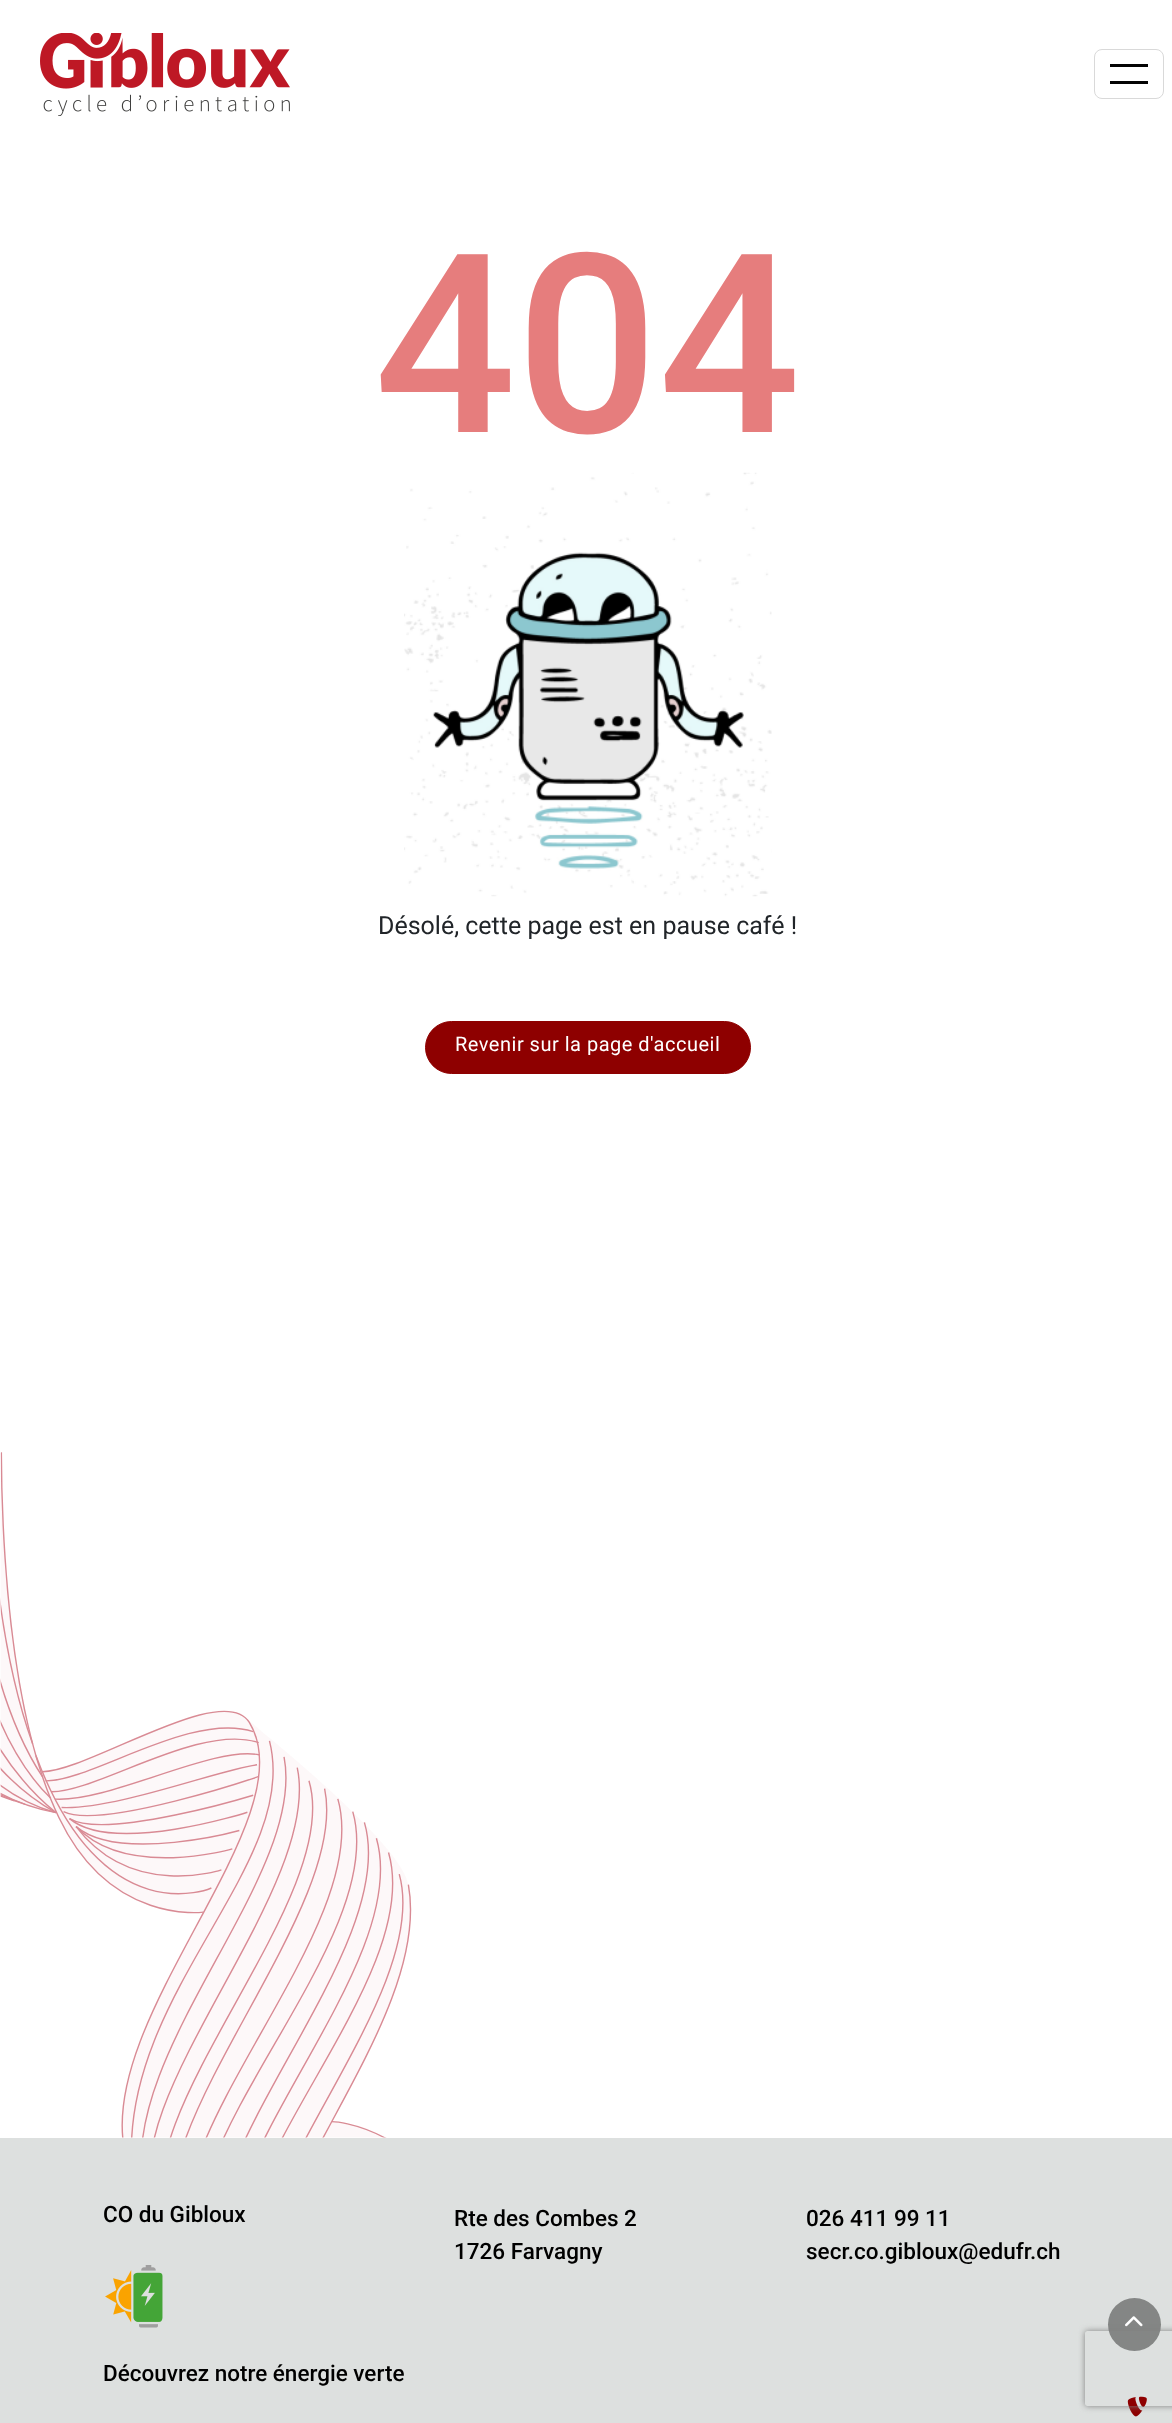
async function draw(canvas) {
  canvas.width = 1172
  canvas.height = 2423
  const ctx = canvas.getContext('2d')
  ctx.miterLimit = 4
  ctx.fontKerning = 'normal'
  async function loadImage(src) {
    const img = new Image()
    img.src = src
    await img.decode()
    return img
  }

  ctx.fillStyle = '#fff'
  ctx.fillRect(0, 0, 1172, 2423)
  ctx.drawImage(await loadImage('image0.png'), 40, 33, 250, 83)
  ctx.beginPath()
  ctx.roundRect(1094.5, 49.5, 69, 49, 7.5)
  ctx.strokeStyle = '#d9d9d9'
  ctx.stroke()
  ctx.fillStyle = '#030303'
  ctx.fillRect(1110, 64, 38, 3)
  ctx.fillRect(1110, 81, 38, 3)
  ctx.font = '500 250px Roboto'
  ctx.fillStyle = '#e67d7d'
  ctx.fillText('404', 374, 432)
  ctx.drawImage(await loadImage('image1.png'), 404, 472, 368, 425)
  ctx.font = '25px Roboto'
  ctx.fillStyle = '#212529'
  ctx.fillText('Désolé, cette page est en pause café !', 378, 934)
  ctx.fillStyle = '#8e0000'
  ctx.beginPath()
  ctx.roundRect(425.5, 1021.5, 325, 52, 26)
  ctx.fill()
  ctx.strokeStyle = '#8e0000'
  ctx.stroke()
  ctx.letterSpacing = '0.5px'
  ctx.font = '20px Roboto'
  ctx.fillStyle = '#fff'
  ctx.fillText('Revenir sur la page d\'accueil', 455, 1051)
  ctx.drawImage(await loadImage('image2.png'), 0, 1452, 412, 686)
  ctx.fillStyle = '#dde0df'
  ctx.fillRect(0, 2138, 1172, 285)
  ctx.letterSpacing = '0px'
  ctx.font = '500 22.5px Roboto'
  ctx.fillStyle = '#000'
  ctx.fillText('CO du Gibloux', 103, 2222)
  ctx.drawImage(await loadImage('image3.png'), 105, 2265, 58, 63)
  ctx.fillText('Découvrez notre énergie verte', 103, 2381)
  ctx.fillText('Rte des Combes 2', 454, 2226)
  ctx.fillText('1726 Farvagny', 454, 2259)
  ctx.fillText('026 411 99 11', 806, 2226)
  ctx.fillText('secr.co.gibloux@edufr.ch', 806, 2259)
  ctx.drawImage(await loadImage('image4.png'), 1127, 2396, 20, 21)
  ctx.fillStyle = '#848685'
  ctx.beginPath()
  ctx.arc(1134.5, 2324.5, 26.5, 0, 2 * Math.PI)
  ctx.fill()
  ctx.drawImage(await loadImage('image5.png'), 1125, 2316, 18, 11)
  ctx.save()
  ctx.beginPath()
  ctx.moveTo(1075, 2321)
  ctx.lineTo(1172, 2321)
  ctx.lineTo(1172, 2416)
  ctx.lineTo(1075, 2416)
  ctx.closePath()
  ctx.moveTo(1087.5, 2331)
  ctx.lineTo(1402.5, 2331)
  ctx.bezierCurveTo(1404, 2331, 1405, 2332, 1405, 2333.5)
  ctx.lineTo(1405, 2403.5)
  ctx.bezierCurveTo(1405, 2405, 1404, 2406, 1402.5, 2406)
  ctx.lineTo(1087.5, 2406)
  ctx.bezierCurveTo(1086, 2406, 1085, 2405, 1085, 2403.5)
  ctx.lineTo(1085, 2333.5)
  ctx.bezierCurveTo(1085, 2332, 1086, 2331, 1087.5, 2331)
  ctx.closePath()
  ctx.clip('evenodd')
  ctx.fillStyle = '#808080'
  ctx.filter = 'blur(3px)'
  ctx.beginPath()
  ctx.roundRect(1085, 2331, 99, 75, 2.5)
  ctx.fill()
  ctx.filter = 'none'
  ctx.restore()
}

draw(document.querySelector('canvas'))
